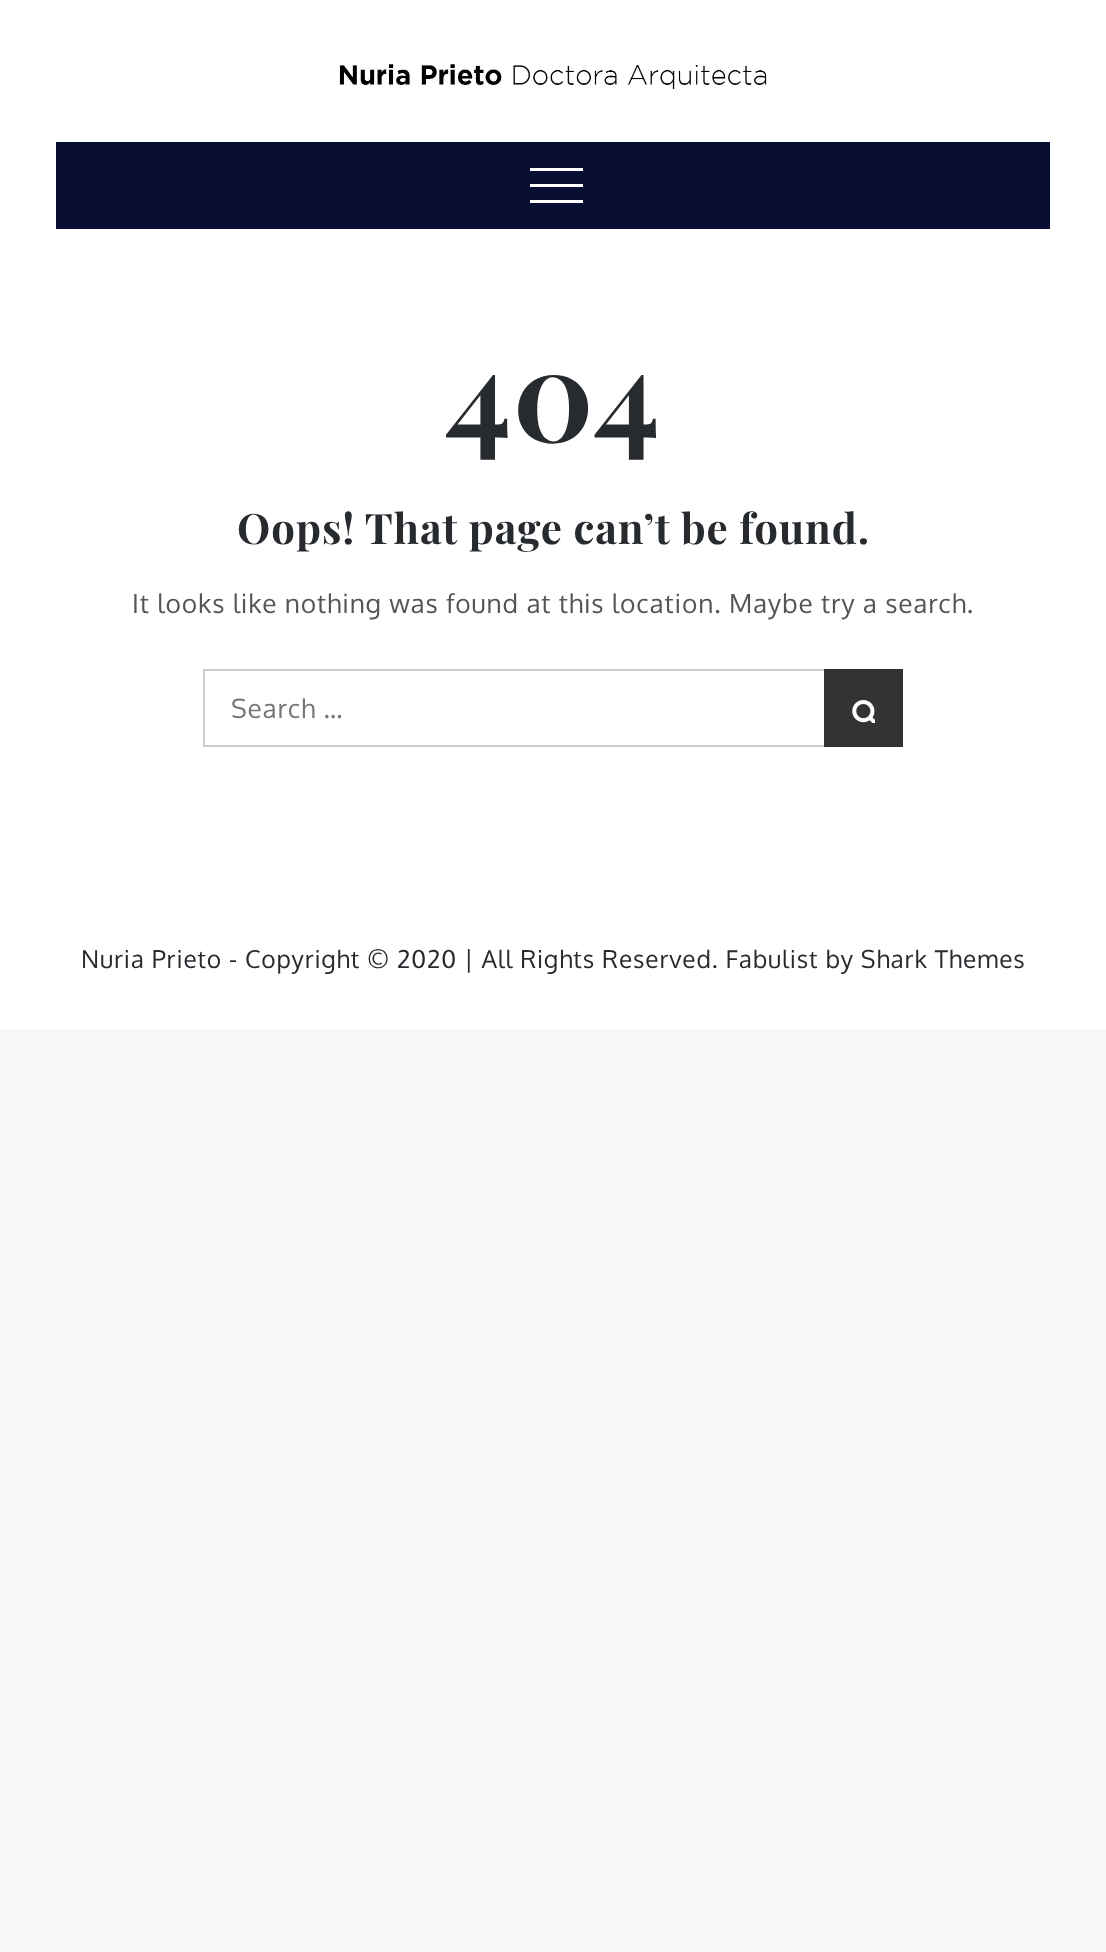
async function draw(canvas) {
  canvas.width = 1106
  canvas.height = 1952
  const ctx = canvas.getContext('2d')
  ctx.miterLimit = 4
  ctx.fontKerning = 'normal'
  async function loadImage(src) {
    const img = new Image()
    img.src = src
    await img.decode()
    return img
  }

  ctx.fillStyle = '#f8f8f8'
  ctx.fillRect(0, 0, 1106, 1952)
  ctx.fillStyle = '#fff'
  ctx.fillRect(0, 0, 1106, 1029)
  ctx.drawImage(await loadImage('image0.png'), 339, 64, 428, 26)
  ctx.fillStyle = '#070e31'
  ctx.fillRect(56, 142, 994, 87)
  ctx.fillStyle = '#fff'
  ctx.fillRect(530, 168, 53, 3)
  ctx.fillRect(530, 184, 53, 3)
  ctx.fillRect(530, 200, 53, 3)
  ctx.letterSpacing = '0.88px'
  ctx.font = 'bold 126px Playfair Display'
  ctx.fillStyle = '#272b2f'
  ctx.fillText('404', 445, 442)
  ctx.font = 'bold 42px Playfair Display'
  ctx.fillText('Oops! That page can’t be found.', 237, 544)
  ctx.font = '26.25px Oxygen'
  ctx.fillStyle = '#555'
  ctx.fillText('It looks like nothing was found at this location. Maybe try a search.', 132, 613)
  ctx.strokeStyle = '#ccc'
  ctx.lineWidth = 2
  ctx.strokeRect(204, 670, 698, 76)
  ctx.fillStyle = '#757575'
  ctx.fillText('Search …', 231, 718)
  ctx.fillStyle = '#333'
  ctx.fillRect(824, 669, 79, 78)
  ctx.drawImage(await loadImage('image1.png'), 852, 700, 23, 23)
  ctx.font = '24.5px Oxygen'
  ctx.fillStyle = '#272b2f'
  ctx.fillText('Nuria Prieto - Copyright © 2020 | All Rights Reserved. Fabulist by Shark Themes', 81, 968)
}

draw(document.querySelector('canvas'))
